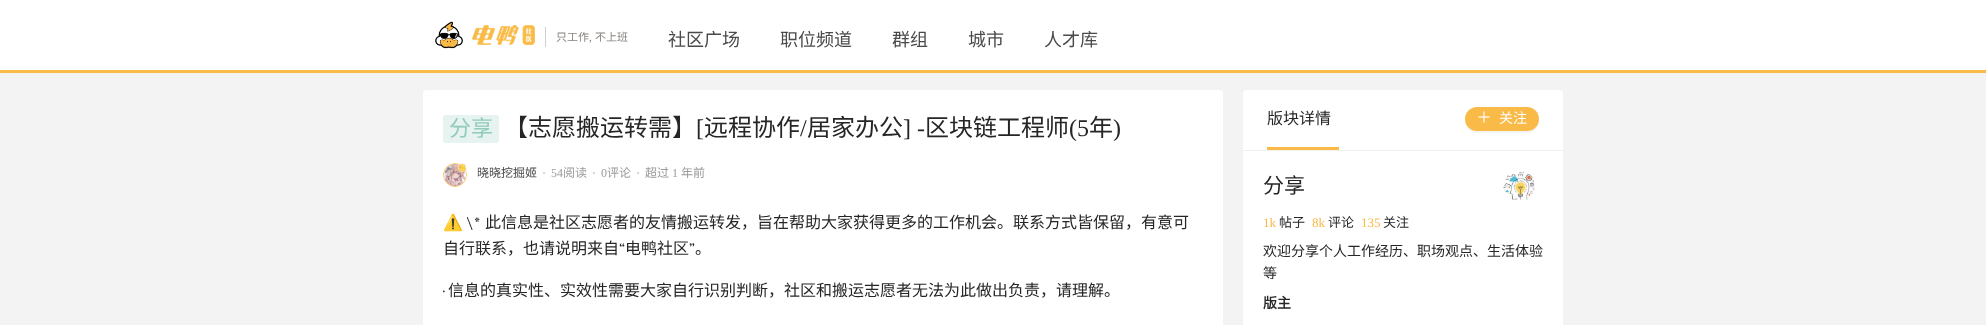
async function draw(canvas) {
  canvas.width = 1986
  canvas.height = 325
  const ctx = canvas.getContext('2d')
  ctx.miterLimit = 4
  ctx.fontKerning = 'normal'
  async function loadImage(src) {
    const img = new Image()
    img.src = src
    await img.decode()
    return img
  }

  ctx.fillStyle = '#f3f3f3'
  ctx.fillRect(0, 0, 1986, 325)
  ctx.fillStyle = '#fff'
  ctx.fillRect(0, 0, 1986, 70)
  ctx.fillStyle = '#f9ba48'
  ctx.fillRect(0, 70, 1986, 3)
  ctx.drawImage(await loadImage('image0.png'), 435, 21, 28, 28)
  ctx.drawImage(await loadImage('image1.png'), 472, 25, 63, 20)
  ctx.fillStyle = '#d2cfce'
  ctx.fillRect(545, 27, 1, 20)
  ctx.font = '11px Noto Sans CJK SC'
  ctx.fillStyle = '#89837f'
  ctx.fillText('只工作', 556, 41)
  ctx.font = '11px Liberation Serif'
  ctx.fillText(',', 589, 41)
  ctx.font = '11px Noto Sans CJK SC'
  ctx.fillText('不上班', 595, 41)
  ctx.font = '18px Noto Sans CJK SC'
  ctx.fillStyle = '#4a4a4a'
  ctx.fillText('社区广场', 668, 46)
  ctx.fillText('职位频道', 780, 46)
  ctx.fillText('群组', 892, 46)
  ctx.fillText('城市', 968, 46)
  ctx.fillText('人才库', 1044, 46)
  ctx.fillStyle = '#fff'
  ctx.beginPath()
  ctx.roundRect(423, 90, 800, 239, 4)
  ctx.fill()
  ctx.fillStyle = '#e7f3f0'
  ctx.beginPath()
  ctx.roundRect(443, 115, 56, 28, 3)
  ctx.fill()
  ctx.font = '22px Noto Sans CJK SC'
  ctx.fillStyle = '#91cbba'
  ctx.fillText('分享', 449, 136)
  ctx.font = '24px Noto Sans CJK SC'
  ctx.fillStyle = '#262626'
  ctx.fillText('【志愿搬运转需】', 504, 136)
  ctx.font = '24px Liberation Serif'
  ctx.fillText('[', 696, 136)
  ctx.font = '24px Noto Sans CJK SC'
  ctx.fillText('远程协作', 704, 136)
  ctx.font = '24px Liberation Serif'
  ctx.fillText('/', 800, 136)
  ctx.font = '24px Noto Sans CJK SC'
  ctx.fillText('居家办公', 807, 136)
  ctx.font = '24px Liberation Serif'
  ctx.fillText('] -', 903, 136)
  ctx.font = '24px Noto Sans CJK SC'
  ctx.fillText('区块链工程师', 925, 136)
  ctx.font = '24px Liberation Serif'
  ctx.fillText('(5', 1069, 136)
  ctx.font = '24px Noto Sans CJK SC'
  ctx.fillText('年', 1089, 136)
  ctx.font = '24px Liberation Serif'
  ctx.fillText(')', 1113, 136)
  ctx.beginPath()
  ctx.arc(455, 175, 11.5, 0, 2 * Math.PI)
  ctx.strokeStyle = '#ffcb6c'
  ctx.stroke()
  ctx.drawImage(await loadImage('image2.png'), 444, 164, 22, 22)
  ctx.drawImage(await loadImage('image3.png'), 457, 163, 10, 9)
  ctx.font = '12px Noto Sans CJK SC'
  ctx.fillStyle = '#4a4a4a'
  ctx.fillText('晓晓挖掘姬', 477, 177)
  ctx.font = '12px Liberation Serif'
  ctx.fillStyle = '#9b9b9b'
  ctx.fillText('·', 542, 177)
  ctx.fillText('54', 551, 177)
  ctx.font = '12px Noto Sans CJK SC'
  ctx.fillText('阅读', 563, 177)
  ctx.font = '12px Liberation Serif'
  ctx.fillText('·', 592, 177)
  ctx.fillText('0', 601, 177)
  ctx.font = '12px Noto Sans CJK SC'
  ctx.fillText('评论', 607, 177)
  ctx.font = '12px Liberation Serif'
  ctx.fillText('·', 636, 177)
  ctx.font = '12px Noto Sans CJK SC'
  ctx.fillText('超过', 645, 177)
  ctx.font = '12px Liberation Serif'
  ctx.fillText('1', 672, 177)
  ctx.font = '12px Noto Sans CJK SC'
  ctx.fillText('年前', 681, 177)
  ctx.font = '16px Noto Color Emoji'
  ctx.fillStyle = '#262626'
  ctx.fillText('⚠️', 443, 228)
  ctx.font = '16px Caladea'
  ctx.fillText('\\*', 466, 228)
  ctx.font = '16px Noto Sans CJK SC'
  ctx.fillText('此信息是社区志愿者的友情搬运转发，旨在帮助大家获得更多的工作机会。联系方式皆保留，有意可', 485, 228)
  ctx.fillText('自行联系，也请说明来自', 443, 254)
  ctx.font = '16px Caladea'
  ctx.fillText('“', 619, 254)
  ctx.font = '16px Noto Sans CJK SC'
  ctx.fillText('电鸭社区', 625, 254)
  ctx.font = '16px Caladea'
  ctx.fillText('”', 689, 254)
  ctx.font = '16px Noto Sans CJK SC'
  ctx.fillText('。', 695, 254)
  ctx.font = '16px Caladea'
  ctx.fillText('·', 443, 296)
  ctx.font = '16px Noto Sans CJK SC'
  ctx.fillText('信息的真实性、实效性需要大家自行识别判断，社区和搬运志愿者无法为此做出负责，请理解。', 448, 296)
  ctx.fillStyle = '#fff'
  ctx.beginPath()
  ctx.roundRect(1243, 90, 320, 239, 4)
  ctx.fill()
  ctx.fillStyle = '#f0f0f0'
  ctx.fillRect(1243, 150, 320, 1)
  ctx.fillStyle = '#262626'
  ctx.fillText('版块详情', 1267, 124)
  ctx.fillStyle = '#f4f4f4'
  ctx.beginPath()
  ctx.moveTo(1465, 120)
  ctx.bezierCurveTo(1465, 126, 1469, 132, 1475, 133)
  ctx.lineTo(1529, 133)
  ctx.bezierCurveTo(1535, 132, 1539, 126, 1539, 120)
  ctx.bezierCurveTo(1538, 126, 1533, 131, 1527, 131)
  ctx.lineTo(1477, 131)
  ctx.bezierCurveTo(1471, 131, 1466, 126, 1465, 120)
  ctx.closePath()
  ctx.fill()
  ctx.fillStyle = '#f9ba48'
  ctx.beginPath()
  ctx.roundRect(1465, 107, 74, 24, 12)
  ctx.fill()
  ctx.drawImage(await loadImage('image4.png'), 1478, 111, 12, 12)
  ctx.font = '14px Noto Sans CJK SC'
  ctx.fillStyle = '#fff'
  ctx.fillText('关注', 1499, 123)
  ctx.fillStyle = '#f9ba48'
  ctx.fillRect(1267, 147, 72, 3)
  ctx.font = '21px Noto Sans CJK SC'
  ctx.fillStyle = '#262626'
  ctx.fillText('分享', 1263, 193)
  ctx.font = '13px Liberation Serif'
  ctx.fillStyle = '#f9ba48'
  ctx.fillText('1k', 1263, 227)
  ctx.font = '13px Noto Sans CJK SC'
  ctx.fillStyle = '#262626'
  ctx.fillText('帖子', 1279, 227)
  ctx.font = '13px Liberation Serif'
  ctx.fillStyle = '#f9ba48'
  ctx.fillText('8k', 1312, 227)
  ctx.font = '13px Noto Sans CJK SC'
  ctx.fillStyle = '#262626'
  ctx.fillText('评论', 1328, 227)
  ctx.font = '13px Liberation Serif'
  ctx.fillStyle = '#f9ba48'
  ctx.fillText('135', 1361, 227)
  ctx.font = '13px Noto Sans CJK SC'
  ctx.fillStyle = '#262626'
  ctx.fillText('关注', 1383, 227)
  ctx.drawImage(await loadImage('image5.png'), 1503, 171, 32, 29)
  ctx.font = '14px Noto Sans CJK SC'
  ctx.fillText('欢迎分享个人工作经历、职场观点、生活体验', 1263, 256)
  ctx.fillText('等', 1263, 278)
  ctx.font = 'bold 14px Noto Sans CJK SC'
  ctx.fillText('版主', 1263, 308)
}

draw(document.querySelector('canvas'))
